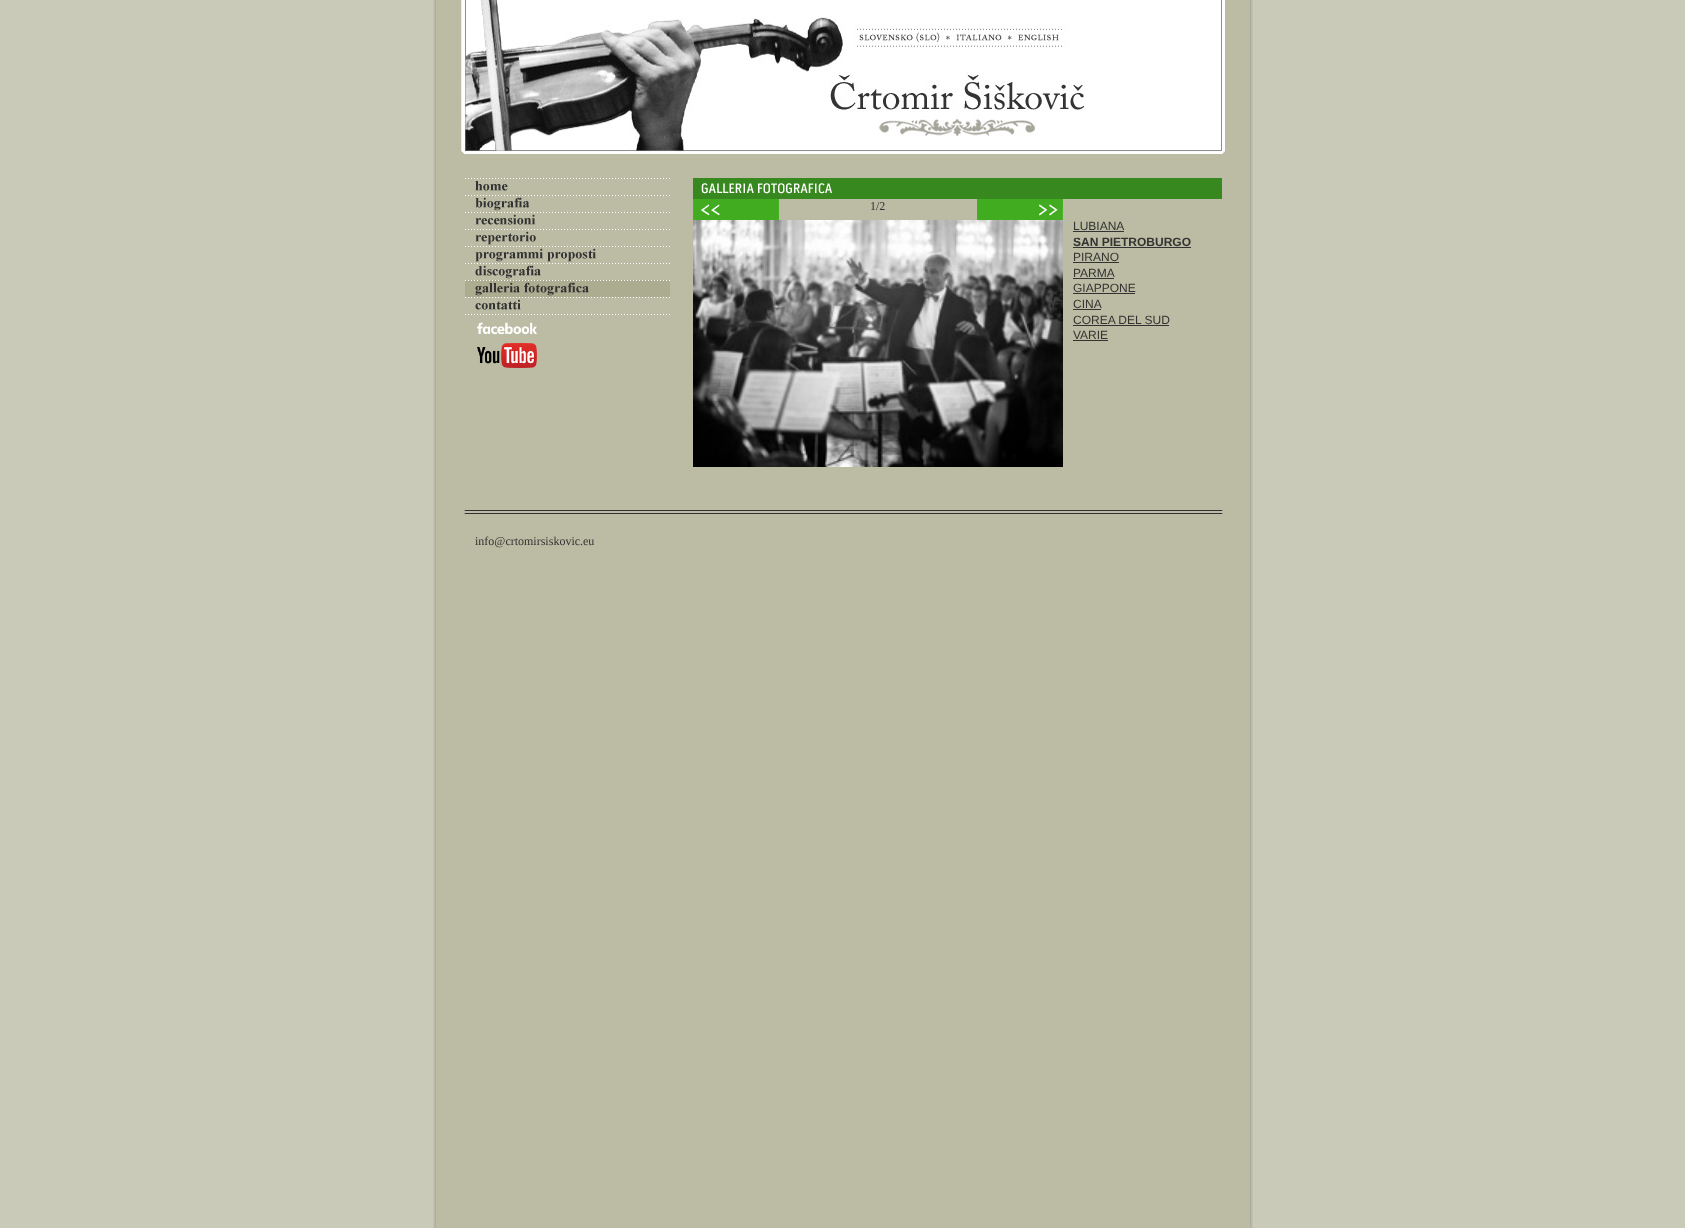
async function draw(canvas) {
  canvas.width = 1685
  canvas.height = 1228
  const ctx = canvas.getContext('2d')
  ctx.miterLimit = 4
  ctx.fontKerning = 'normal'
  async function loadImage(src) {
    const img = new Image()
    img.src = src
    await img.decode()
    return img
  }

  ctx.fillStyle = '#cacab9'
  ctx.fillRect(0, 0, 1685, 1228)
  ctx.drawImage(await loadImage('image0.png'), 433, 0, 820, 1228)
  ctx.drawImage(await loadImage('image1.png'), 461, 0, 764, 155)
  ctx.drawImage(await loadImage('image2.png'), 465, 178, 205, 13)
  ctx.drawImage(await loadImage('image3.png'), 465, 195, 205, 16)
  ctx.drawImage(await loadImage('image4.png'), 465, 212, 205, 13)
  ctx.drawImage(await loadImage('image5.png'), 465, 229, 205, 16)
  ctx.drawImage(await loadImage('image6.png'), 465, 246, 205, 16)
  ctx.drawImage(await loadImage('image7.png'), 465, 263, 205, 16)
  ctx.drawImage(await loadImage('image8.png'), 465, 280, 205, 17)
  ctx.drawImage(await loadImage('image9.png'), 465, 297, 205, 18)
  ctx.drawImage(await loadImage('image10.png'), 477, 322, 60, 13)
  ctx.drawImage(await loadImage('image11.png'), 477, 343, 60, 25)
  ctx.fillStyle = '#37881e'
  ctx.fillRect(693, 178, 529, 21)
  ctx.drawImage(await loadImage('image12.png'), 701, 183, 131, 11)
  ctx.drawImage(await loadImage('image13.png'), 693, 199, 86, 21)
  ctx.font = '12px Liberation Serif'
  ctx.fillStyle = '#333'
  ctx.fillText('1/2', 870, 210)
  ctx.drawImage(await loadImage('image14.png'), 977, 199, 86, 21)
  ctx.drawImage(await loadImage('image15.png'), 693, 220, 370, 247)
  ctx.font = '12px Liberation Sans'
  ctx.fillText('LUBIANA', 1073, 230)
  ctx.fillRect(1073, 231, 51, 1)
  ctx.font = 'bold 12px Liberation Sans'
  ctx.fillText('SAN PIETROBURGO', 1073, 246)
  ctx.fillRect(1073, 247, 118, 1)
  ctx.font = '12px Liberation Sans'
  ctx.fillText('PIRANO', 1073, 261)
  ctx.fillRect(1073, 262, 46, 1)
  ctx.fillText('PARMA', 1073, 277)
  ctx.fillRect(1073, 278, 41, 1)
  ctx.fillText('GIAPPONE', 1073, 292)
  ctx.fillRect(1073, 293, 62, 1)
  ctx.fillText('CINA', 1073, 308)
  ctx.fillRect(1073, 309, 28, 1)
  ctx.fillText('COREA DEL SUD', 1073, 324)
  ctx.fillRect(1073, 325, 96, 1)
  ctx.fillText('VARIE', 1073, 339)
  ctx.fillRect(1073, 340, 35, 1)
  ctx.drawImage(await loadImage('image16.png'), 464, 510, 759, 1)
  ctx.drawImage(await loadImage('image16.png'), 464, 513, 759, 1)
  ctx.font = '12px Liberation Serif'
  ctx.fillText('info@crtomirsiskovic.eu', 475, 545)
}

draw(document.querySelector('canvas'))
